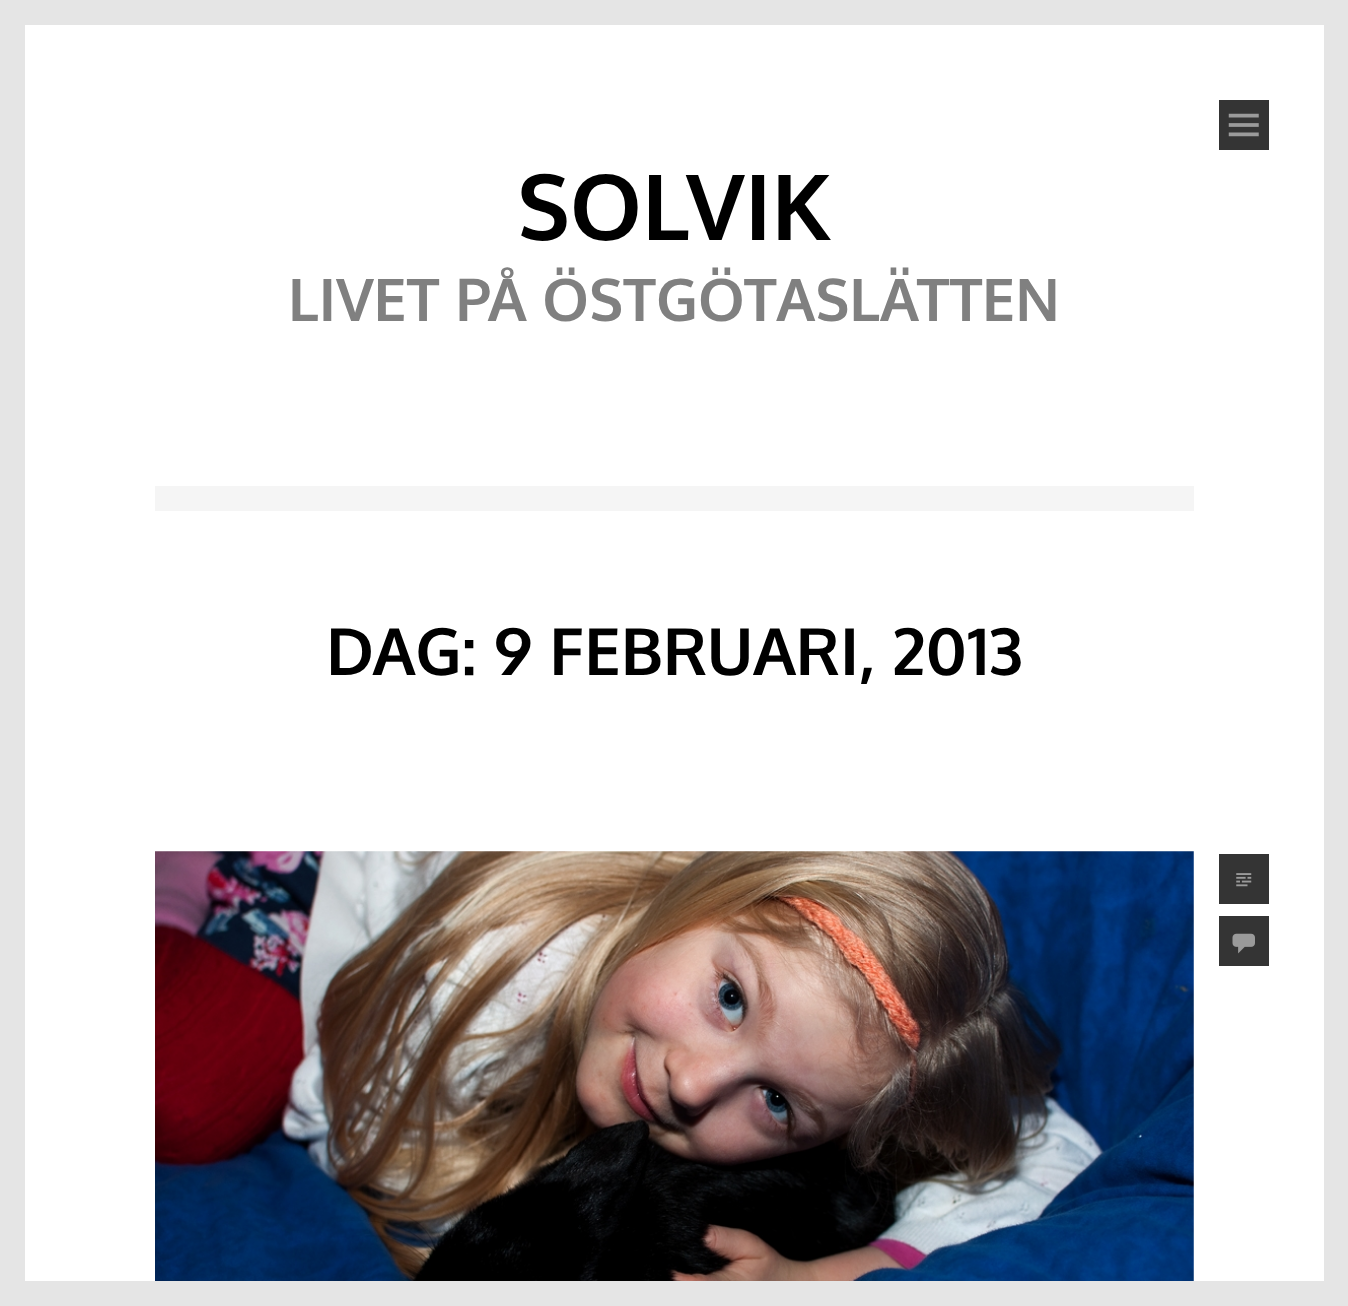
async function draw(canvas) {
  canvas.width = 1348
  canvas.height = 1306
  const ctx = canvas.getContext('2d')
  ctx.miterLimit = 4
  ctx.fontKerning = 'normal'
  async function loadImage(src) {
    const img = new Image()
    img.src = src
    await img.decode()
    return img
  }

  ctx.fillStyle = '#fff'
  ctx.fillRect(0, 0, 1348, 1306)
  ctx.fillStyle = '#e5e5e5'
  ctx.fillRect(1324, 25, 24, 1256)
  ctx.fillRect(0, 25, 25, 1256)
  ctx.fillRect(0, 0, 1348, 25)
  ctx.fillStyle = '#f5f5f5'
  ctx.fillRect(155, 486, 1039, 25)
  ctx.fillStyle = '#343434'
  ctx.fillRect(1219, 100, 50, 50)
  ctx.drawImage(await loadImage('image0.png'), 1228, 113, 31, 24)
  ctx.font = 'bold 91px Oxygen'
  ctx.fillStyle = '#000'
  ctx.fillText('SOLVIK', 517, 240)
  ctx.font = 'bold 58.75px Oxygen'
  ctx.fillStyle = '#808080'
  ctx.fillText('LIVET PÅ ÖSTGÖTASLÄTTEN', 288, 321)
  ctx.font = 'bold 65px Oxygen'
  ctx.fillStyle = '#000'
  ctx.fillText('DAG: 9 FEBRUARI, 2013', 326, 675)
  ctx.drawImage(await loadImage('image1.png'), 155, 851, 1039, 430)
  ctx.fillStyle = '#343434'
  ctx.fillRect(1219, 854, 50, 50)
  ctx.drawImage(await loadImage('image2.png'), 1236, 873, 16, 14)
  ctx.fillRect(1219, 916, 50, 50)
  ctx.drawImage(await loadImage('image3.png'), 1232, 933, 23, 21)
  ctx.fillStyle = '#e5e5e5'
  ctx.fillRect(0, 1281, 1348, 25)
}

draw(document.querySelector('canvas'))
